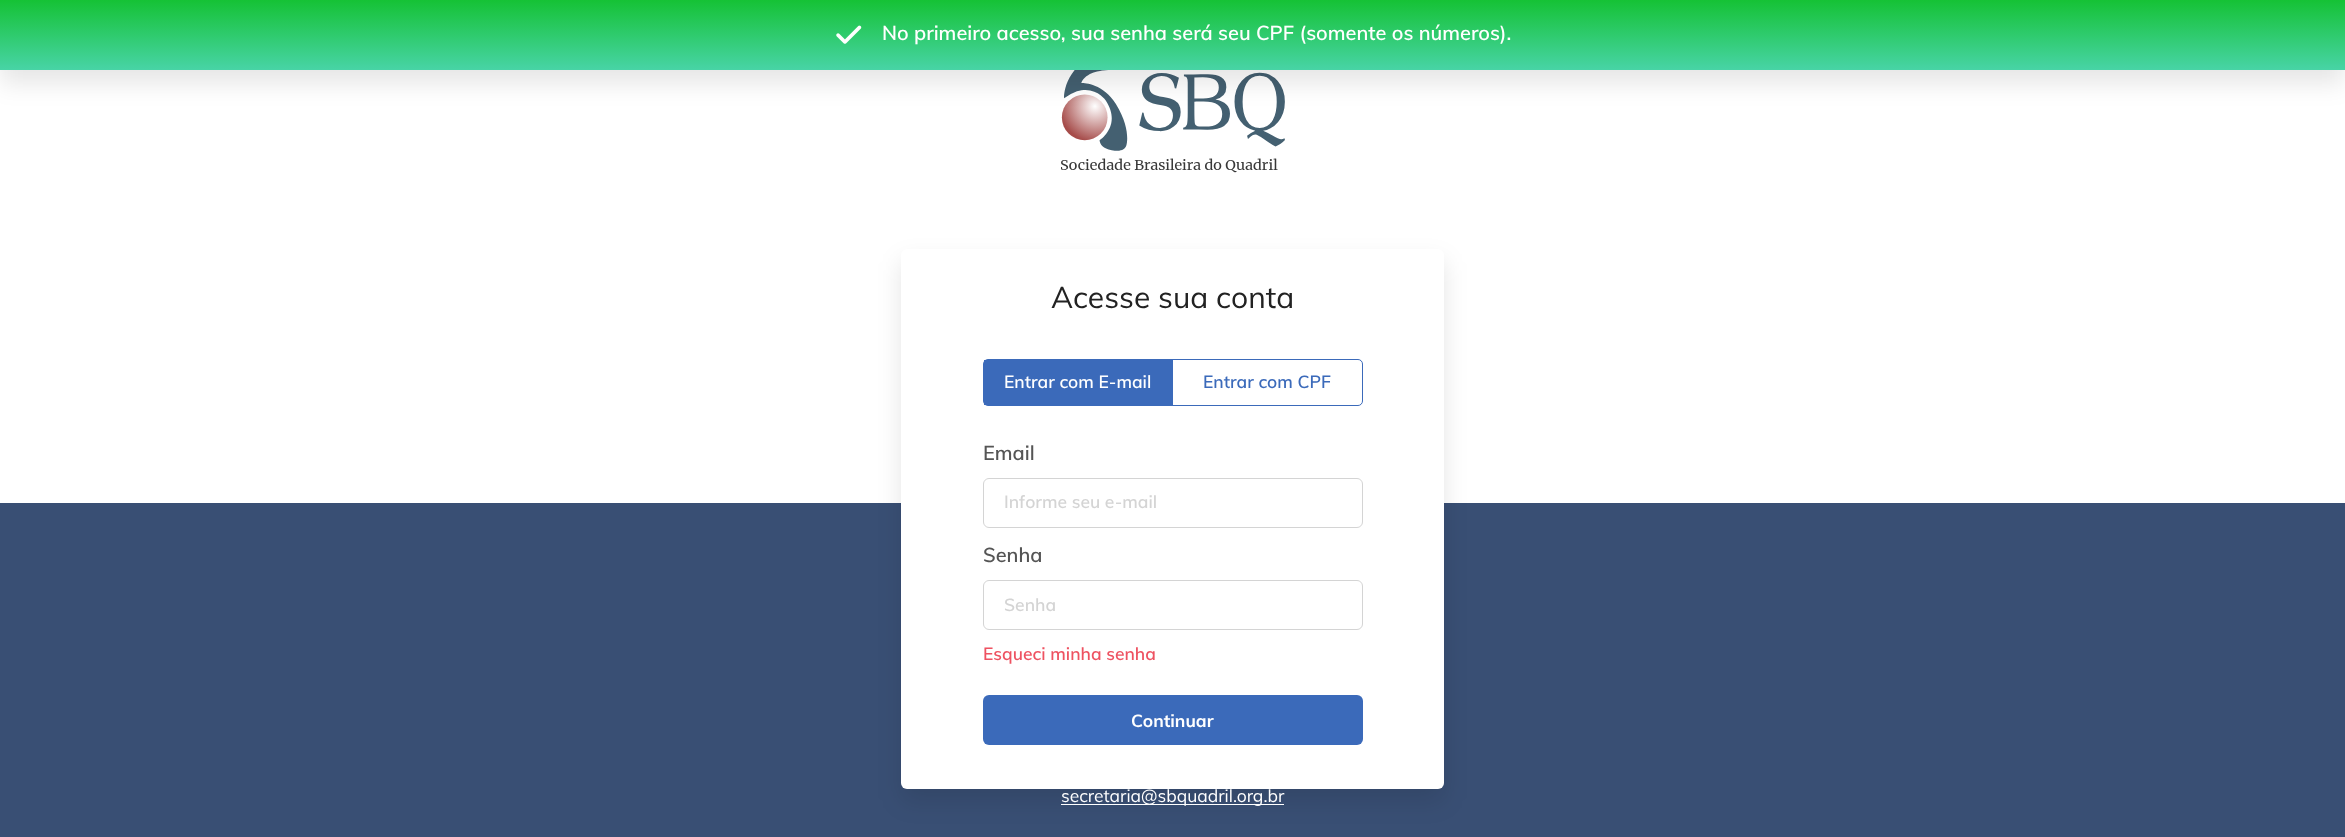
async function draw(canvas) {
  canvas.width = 2345
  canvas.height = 837
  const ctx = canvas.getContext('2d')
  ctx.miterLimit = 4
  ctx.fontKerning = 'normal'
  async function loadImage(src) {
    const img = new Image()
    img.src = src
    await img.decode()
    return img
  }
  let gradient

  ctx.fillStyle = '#fff'
  ctx.fillRect(0, 0, 2345, 837)
  ctx.drawImage(await loadImage('image1.png'), 1061, 70, 224, 103)
  ctx.fillStyle = '#0000001a'
  ctx.filter = 'blur(12.5px)'
  ctx.beginPath()
  ctx.rect(0, 13, 2345, 70)
  ctx.fill()
  ctx.filter = 'none'
  gradient = ctx.createLinearGradient(1173, 0, 1173, 70)
  gradient.addColorStop(0, '#15c235')
  gradient.addColorStop(1, '#48d4a6')
  ctx.fillStyle = gradient
  ctx.fillRect(0, 0, 2345, 70)
  ctx.drawImage(await loadImage('image0.png'), 836, 25, 26, 19)
  ctx.font = '600 20px Muli'
  ctx.fillStyle = '#fff'
  ctx.fillText('No primeiro acesso, sua senha será seu CPF (somente os números).', 882, 40)
  ctx.fillStyle = '#394f74'
  ctx.fillRect(0, 503, 2345, 334)
  ctx.fillStyle = '#0000001a'
  ctx.filter = 'blur(12.5px)'
  ctx.beginPath()
  ctx.roundRect(901, 261, 543, 540, 6)
  ctx.fill()
  ctx.filter = 'none'
  ctx.fillStyle = '#fff'
  ctx.beginPath()
  ctx.roundRect(901, 249, 543, 540, 6)
  ctx.fill()
  ctx.font = '30px Muli'
  ctx.fillStyle = '#222'
  ctx.fillText('Acesse sua conta', 1051, 308)
  ctx.beginPath()
  ctx.roundRect(983.5, 359.5, 379, 46, 4.5)
  ctx.strokeStyle = '#3b6aba'
  ctx.stroke()
  ctx.fillStyle = '#3b6aba'
  ctx.fillRect(984, 360, 189, 45)
  ctx.font = '600 17.5px Muli'
  ctx.fillStyle = '#fff'
  ctx.fillText('Entrar com E-mail', 1004, 388)
  ctx.fillStyle = '#3b6aba'
  ctx.fillText('Entrar com CPF', 1203, 388)
  ctx.font = '600 20px Muli'
  ctx.fillStyle = '#555'
  ctx.fillText('Email', 983, 460)
  ctx.beginPath()
  ctx.roundRect(983.5, 478.5, 379, 49, 5.5)
  ctx.strokeStyle = '#d4d4d4'
  ctx.stroke()
  ctx.font = '600 17.5px Muli'
  ctx.fillStyle = '#d4d4d4'
  ctx.fillText('Informe seu e-mail', 1004, 508)
  ctx.font = '600 20px Muli'
  ctx.fillStyle = '#555'
  ctx.fillText('Senha', 983, 562)
  ctx.beginPath()
  ctx.roundRect(983.5, 580.5, 379, 49, 5.5)
  ctx.stroke()
  ctx.font = '600 17.5px Muli'
  ctx.fillStyle = '#d4d4d4'
  ctx.fillText('Senha', 1004, 611)
  ctx.fillStyle = '#ee5261'
  ctx.fillText('Esqueci minha senha', 983, 660)
  ctx.fillStyle = '#3b6aba'
  ctx.beginPath()
  ctx.roundRect(983, 695, 380, 50, 6)
  ctx.fill()
  ctx.font = 'bold 17.5px Muli'
  ctx.fillStyle = '#fff'
  ctx.fillText('Continuar', 1131, 727)
  ctx.fillRect(1061, 804, 223, 1)
  ctx.font = '17.5px Muli'
  ctx.fillText('secretaria@sbquadril.org.br', 1061, 802)
}

draw(document.querySelector('canvas'))
